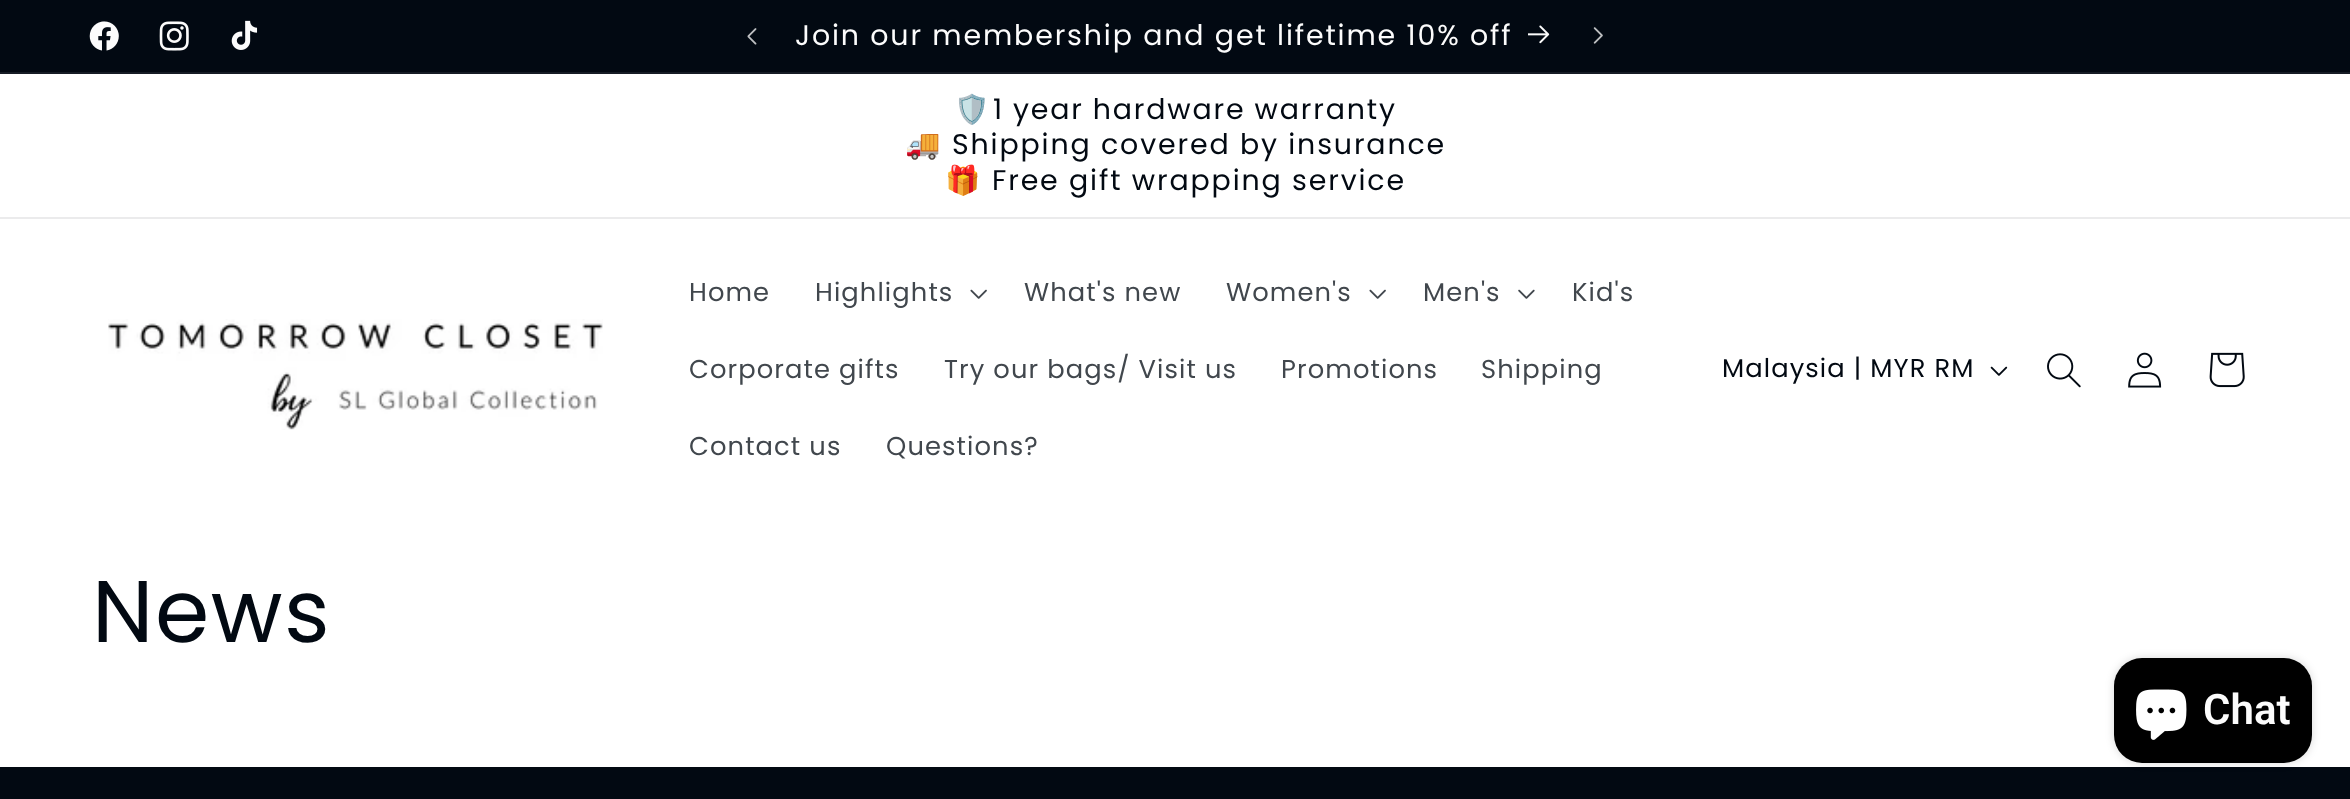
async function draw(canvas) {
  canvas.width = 2350
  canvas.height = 799
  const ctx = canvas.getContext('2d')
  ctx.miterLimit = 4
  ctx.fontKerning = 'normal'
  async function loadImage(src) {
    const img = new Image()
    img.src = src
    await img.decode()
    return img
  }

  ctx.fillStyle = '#fff'
  ctx.fillRect(0, 0, 2350, 799)
  ctx.fillStyle = '#020912'
  ctx.fillRect(0, 0, 2350, 72)
  ctx.fillStyle = '#161c25'
  ctx.fillRect(0, 72, 2350, 2)
  ctx.drawImage(await loadImage('image0.png'), 89, 21, 30, 30)
  ctx.drawImage(await loadImage('image1.png'), 159, 21, 30, 30)
  ctx.drawImage(await loadImage('image2.png'), 231, 20, 27, 30)
  ctx.drawImage(await loadImage('image3.png'), 747, 28, 10, 17)
  ctx.letterSpacing = '1.85px'
  ctx.font = '28.45px Poppins'
  ctx.fillStyle = '#fcfcfc'
  ctx.fillText('Join our membership and get lifetime 10% off', 795, 45)
  ctx.drawImage(await loadImage('image4.png'), 1528, 25, 22, 19)
  ctx.drawImage(await loadImage('image5.png'), 1593, 27, 10, 17)
  ctx.fillStyle = '#ebebec'
  ctx.fillRect(0, 217, 2350, 2)
  ctx.font = '28.45px Noto Color Emoji'
  ctx.fillStyle = '#020912'
  ctx.fillText('🛡️', 954, 119)
  ctx.wordSpacing = '-0.5px'
  ctx.font = '28.45px Poppins'
  ctx.fillText('1 year hardware warranty', 993, 119)
  ctx.wordSpacing = '0px'
  ctx.font = '28.45px Noto Color Emoji'
  ctx.fillText('🚚', 905, 154)
  ctx.font = '28.45px Poppins'
  ctx.fillText('Shipping covered by insurance', 952, 154)
  ctx.font = '28.45px Noto Color Emoji'
  ctx.fillText('🎁', 945, 190)
  ctx.font = '28.45px Poppins'
  ctx.fillText('Free gift wrapping service', 992, 190)
  ctx.drawImage(await loadImage('image6.png'), 108, 319, 495, 111)
  ctx.letterSpacing = '1.1px'
  ctx.font = '25.75px Poppins'
  ctx.fillStyle = '#41474d'
  ctx.fillText('Home', 689, 301)
  ctx.fillText('Highlights', 815, 301)
  ctx.drawImage(await loadImage('image7.png'), 970, 289, 17, 10)
  ctx.fillText('What\'s new', 1024, 301)
  ctx.fillText('Women\'s', 1226, 301)
  ctx.drawImage(await loadImage('image7.png'), 1369, 289, 17, 10)
  ctx.fillText('Men\'s', 1423, 301)
  ctx.drawImage(await loadImage('image8.png'), 1518, 289, 17, 10)
  ctx.fillText('Kid\'s', 1572, 301)
  ctx.fillText('Corporate gifts', 689, 378)
  ctx.fillText('Try our bags/ Visit us', 944, 378)
  ctx.fillText('Promotions', 1281, 378)
  ctx.fillText('Shipping', 1481, 378)
  ctx.fillText('Contact us', 689, 455)
  ctx.fillText('Questions?', 886, 455)
  ctx.fillStyle = '#020912'
  ctx.fillText('Malaysia | MYR RM', 1722, 377)
  ctx.drawImage(await loadImage('image9.png'), 1990, 366, 18, 10)
  ctx.drawImage(await loadImage('image10.png'), 2047, 353, 34, 35)
  ctx.drawImage(await loadImage('image11.png'), 2128, 352, 34, 36)
  ctx.drawImage(await loadImage('image12.png'), 2209, 352, 36, 36)
  ctx.letterSpacing = '1.5px'
  ctx.font = '87.5px Poppins'
  ctx.fillText('News', 92, 642)
  ctx.fillRect(0, 767, 2350, 32)
  ctx.fillStyle = '#00000026'
  ctx.filter = 'blur(4.5px)'
  ctx.beginPath()
  ctx.roundRect(2114, 658, 198, 105, 28)
  ctx.fill()
  ctx.filter = 'none'
  ctx.fillStyle = '#000'
  ctx.beginPath()
  ctx.roundRect(2114, 658, 198, 105, 28)
  ctx.fill()
  ctx.drawImage(await loadImage('image13.png'), 2136, 689, 51, 51)
  ctx.letterSpacing = '0px'
  ctx.font = '600 42px Roboto'
  ctx.fillStyle = '#fcfcfc'
  ctx.fillText('Chat', 2203, 724)
}

draw(document.querySelector('canvas'))
